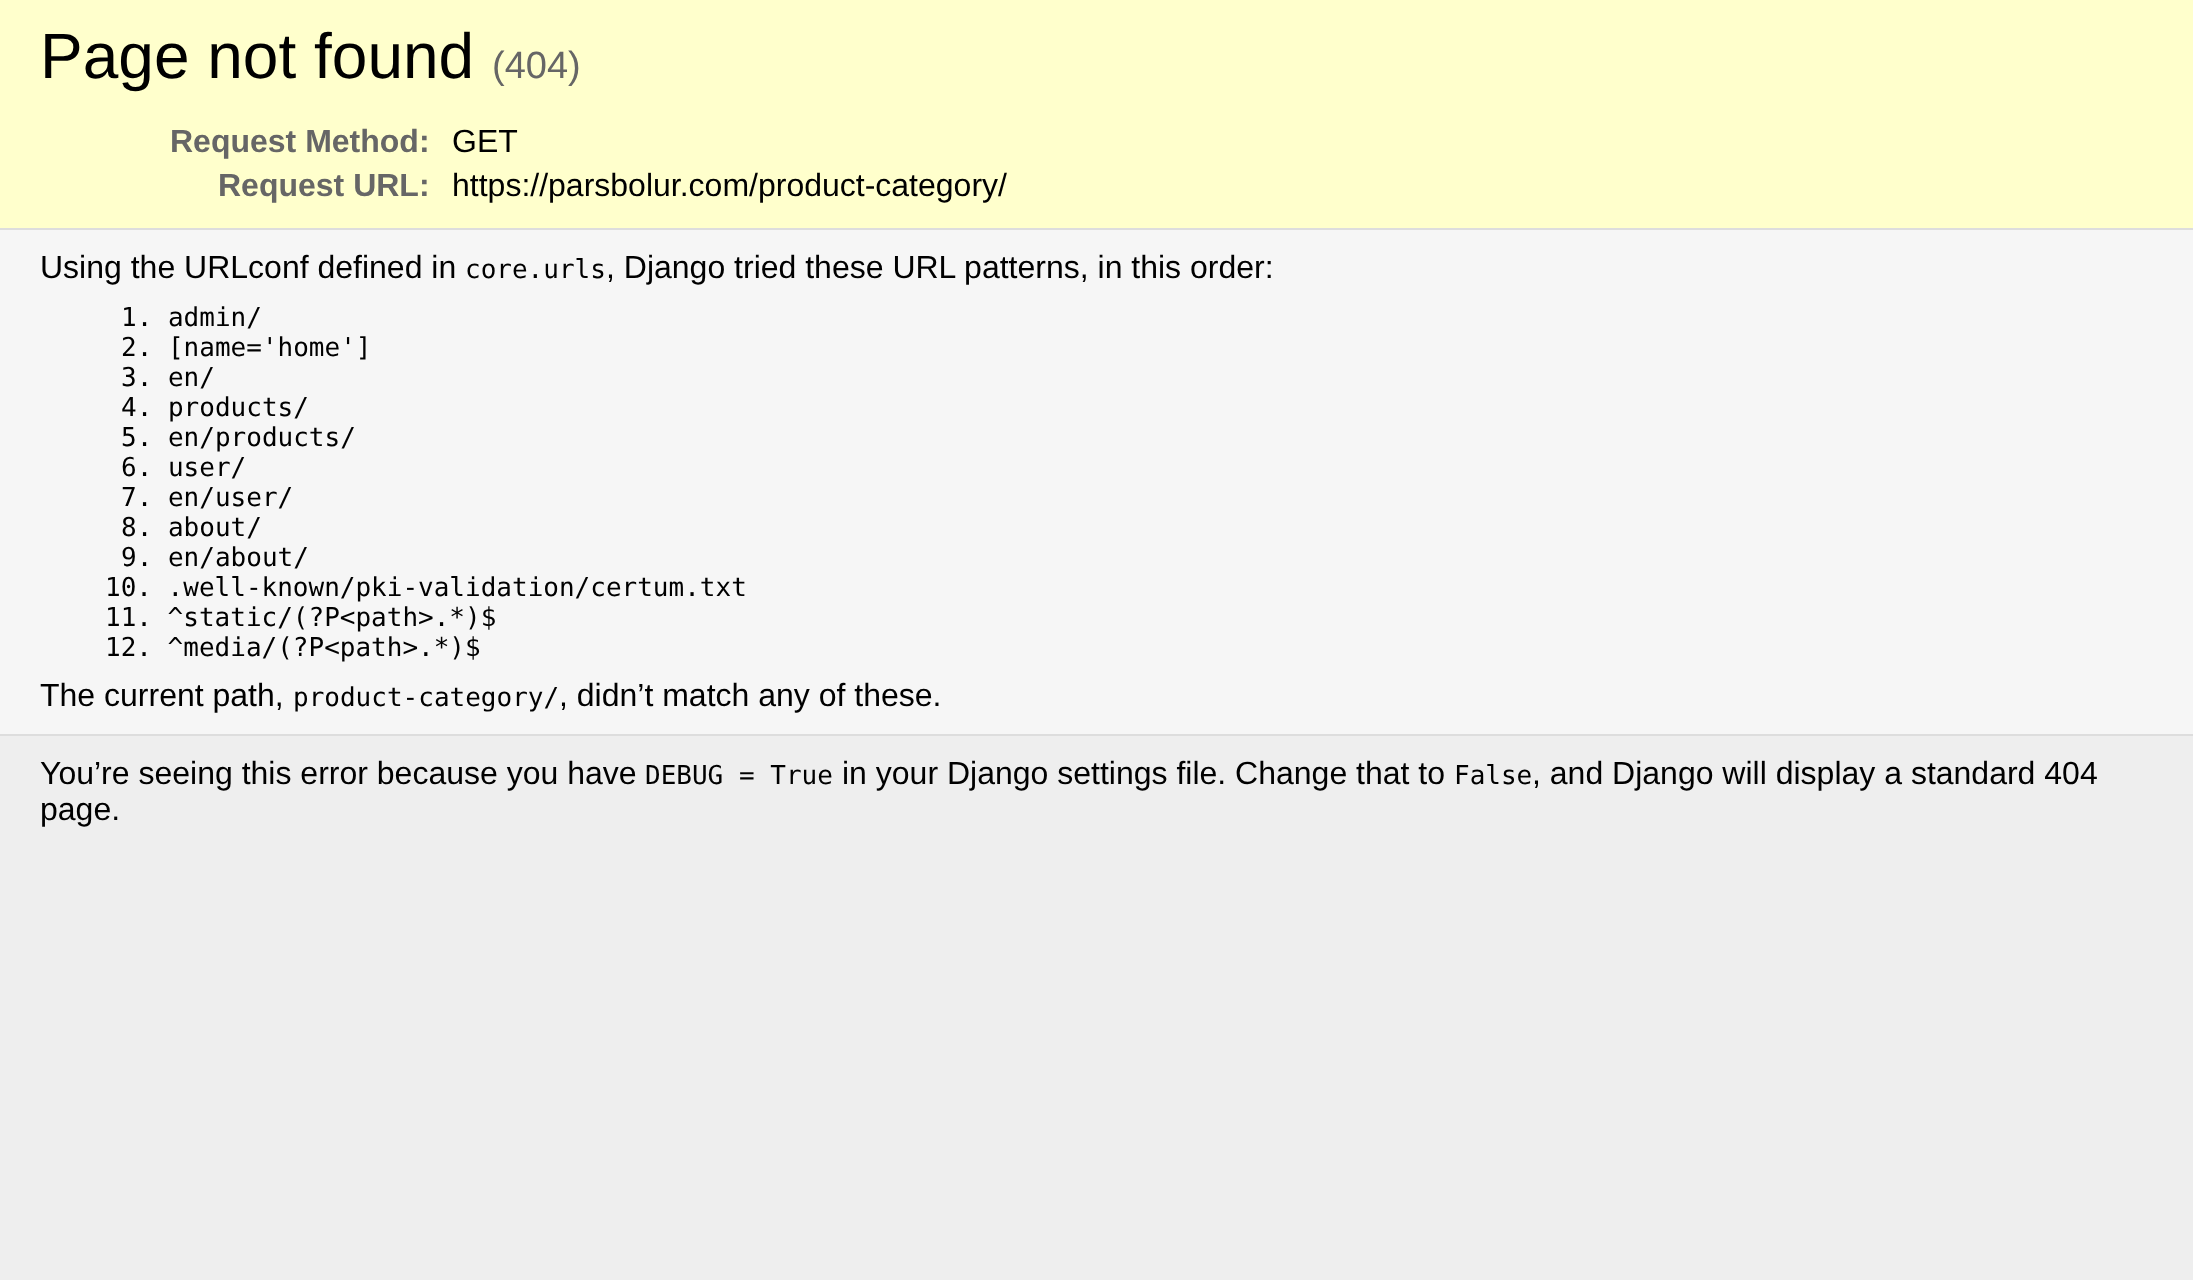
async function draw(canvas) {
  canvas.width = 2193
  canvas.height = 1280
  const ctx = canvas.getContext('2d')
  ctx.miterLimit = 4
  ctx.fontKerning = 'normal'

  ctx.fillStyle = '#eee'
  ctx.fillRect(0, 0, 2193, 1280)
  ctx.fillStyle = '#ffc'
  ctx.fillRect(0, 0, 2193, 228)
  ctx.fillStyle = '#ddd'
  ctx.fillRect(0, 228, 2193, 2)
  ctx.font = '64px Liberation Sans'
  ctx.fillStyle = '#000'
  ctx.fillText('Page not found', 40, 78)
  ctx.font = '38px Liberation Sans'
  ctx.fillStyle = '#666'
  ctx.fillText('(404)', 492, 78)
  ctx.font = 'bold 32px Liberation Sans'
  ctx.fillText('Request Method:', 170, 152)
  ctx.font = '32px Liberation Sans'
  ctx.fillStyle = '#000'
  ctx.fillText('GET', 452, 152)
  ctx.font = 'bold 32px Liberation Sans'
  ctx.fillStyle = '#666'
  ctx.fillText('Request URL:', 218, 196)
  ctx.font = '32px Liberation Sans'
  ctx.fillStyle = '#000'
  ctx.fillText('https://parsbolur.com/product-category/', 452, 196)
  ctx.fillStyle = '#f6f6f6'
  ctx.fillRect(0, 230, 2193, 504)
  ctx.fillStyle = '#ddd'
  ctx.fillRect(0, 734, 2193, 2)
  ctx.fillStyle = '#000'
  ctx.fillText('Using the URLconf defined in', 40, 278)
  ctx.font = '26px DejaVu Sans Mono'
  ctx.fillText('core.urls', 465, 278)
  ctx.font = '32px Liberation Sans'
  ctx.fillText(', Django tried these URL patterns, in this order:', 606, 278)
  ctx.font = '26px DejaVu Sans Mono'
  ctx.fillText('1. admin/', 121, 326)
  ctx.fillText('2. [name=\'home\']', 121, 356)
  ctx.fillText('3. en/', 121, 386)
  ctx.fillText('4. products/', 121, 416)
  ctx.fillText('5. en/products/', 121, 446)
  ctx.fillText('6. user/', 121, 476)
  ctx.fillText('7. en/user/', 121, 506)
  ctx.fillText('8. about/', 121, 536)
  ctx.fillText('9. en/about/', 121, 566)
  ctx.fillText('10. .well-known/pki-validation/certum.txt', 105, 596)
  ctx.fillText('11. ^static/(?P<path>.*)$', 105, 626)
  ctx.fillText('12. ^media/(?P<path>.*)$', 105, 656)
  ctx.font = '32px Liberation Sans'
  ctx.fillText('The current path,', 40, 706)
  ctx.font = '26px DejaVu Sans Mono'
  ctx.fillText('product-category/', 293, 706)
  ctx.font = '32px Liberation Sans'
  ctx.fillText(', didn’t match any of these.', 559, 706)
  ctx.fillText('You’re seeing this error because you have', 40, 784)
  ctx.font = '26px DejaVu Sans Mono'
  ctx.fillText('DEBUG = True', 645, 784)
  ctx.font = '32px Liberation Sans'
  ctx.fillText('in your Django settings file. Change that to', 842, 784)
  ctx.font = '26px DejaVu Sans Mono'
  ctx.fillText('False', 1454, 784)
  ctx.font = '32px Liberation Sans'
  ctx.fillText(', and Django will display a standard 404', 1532, 784)
  ctx.fillText('page.', 40, 820)
}

draw(document.querySelector('canvas'))
